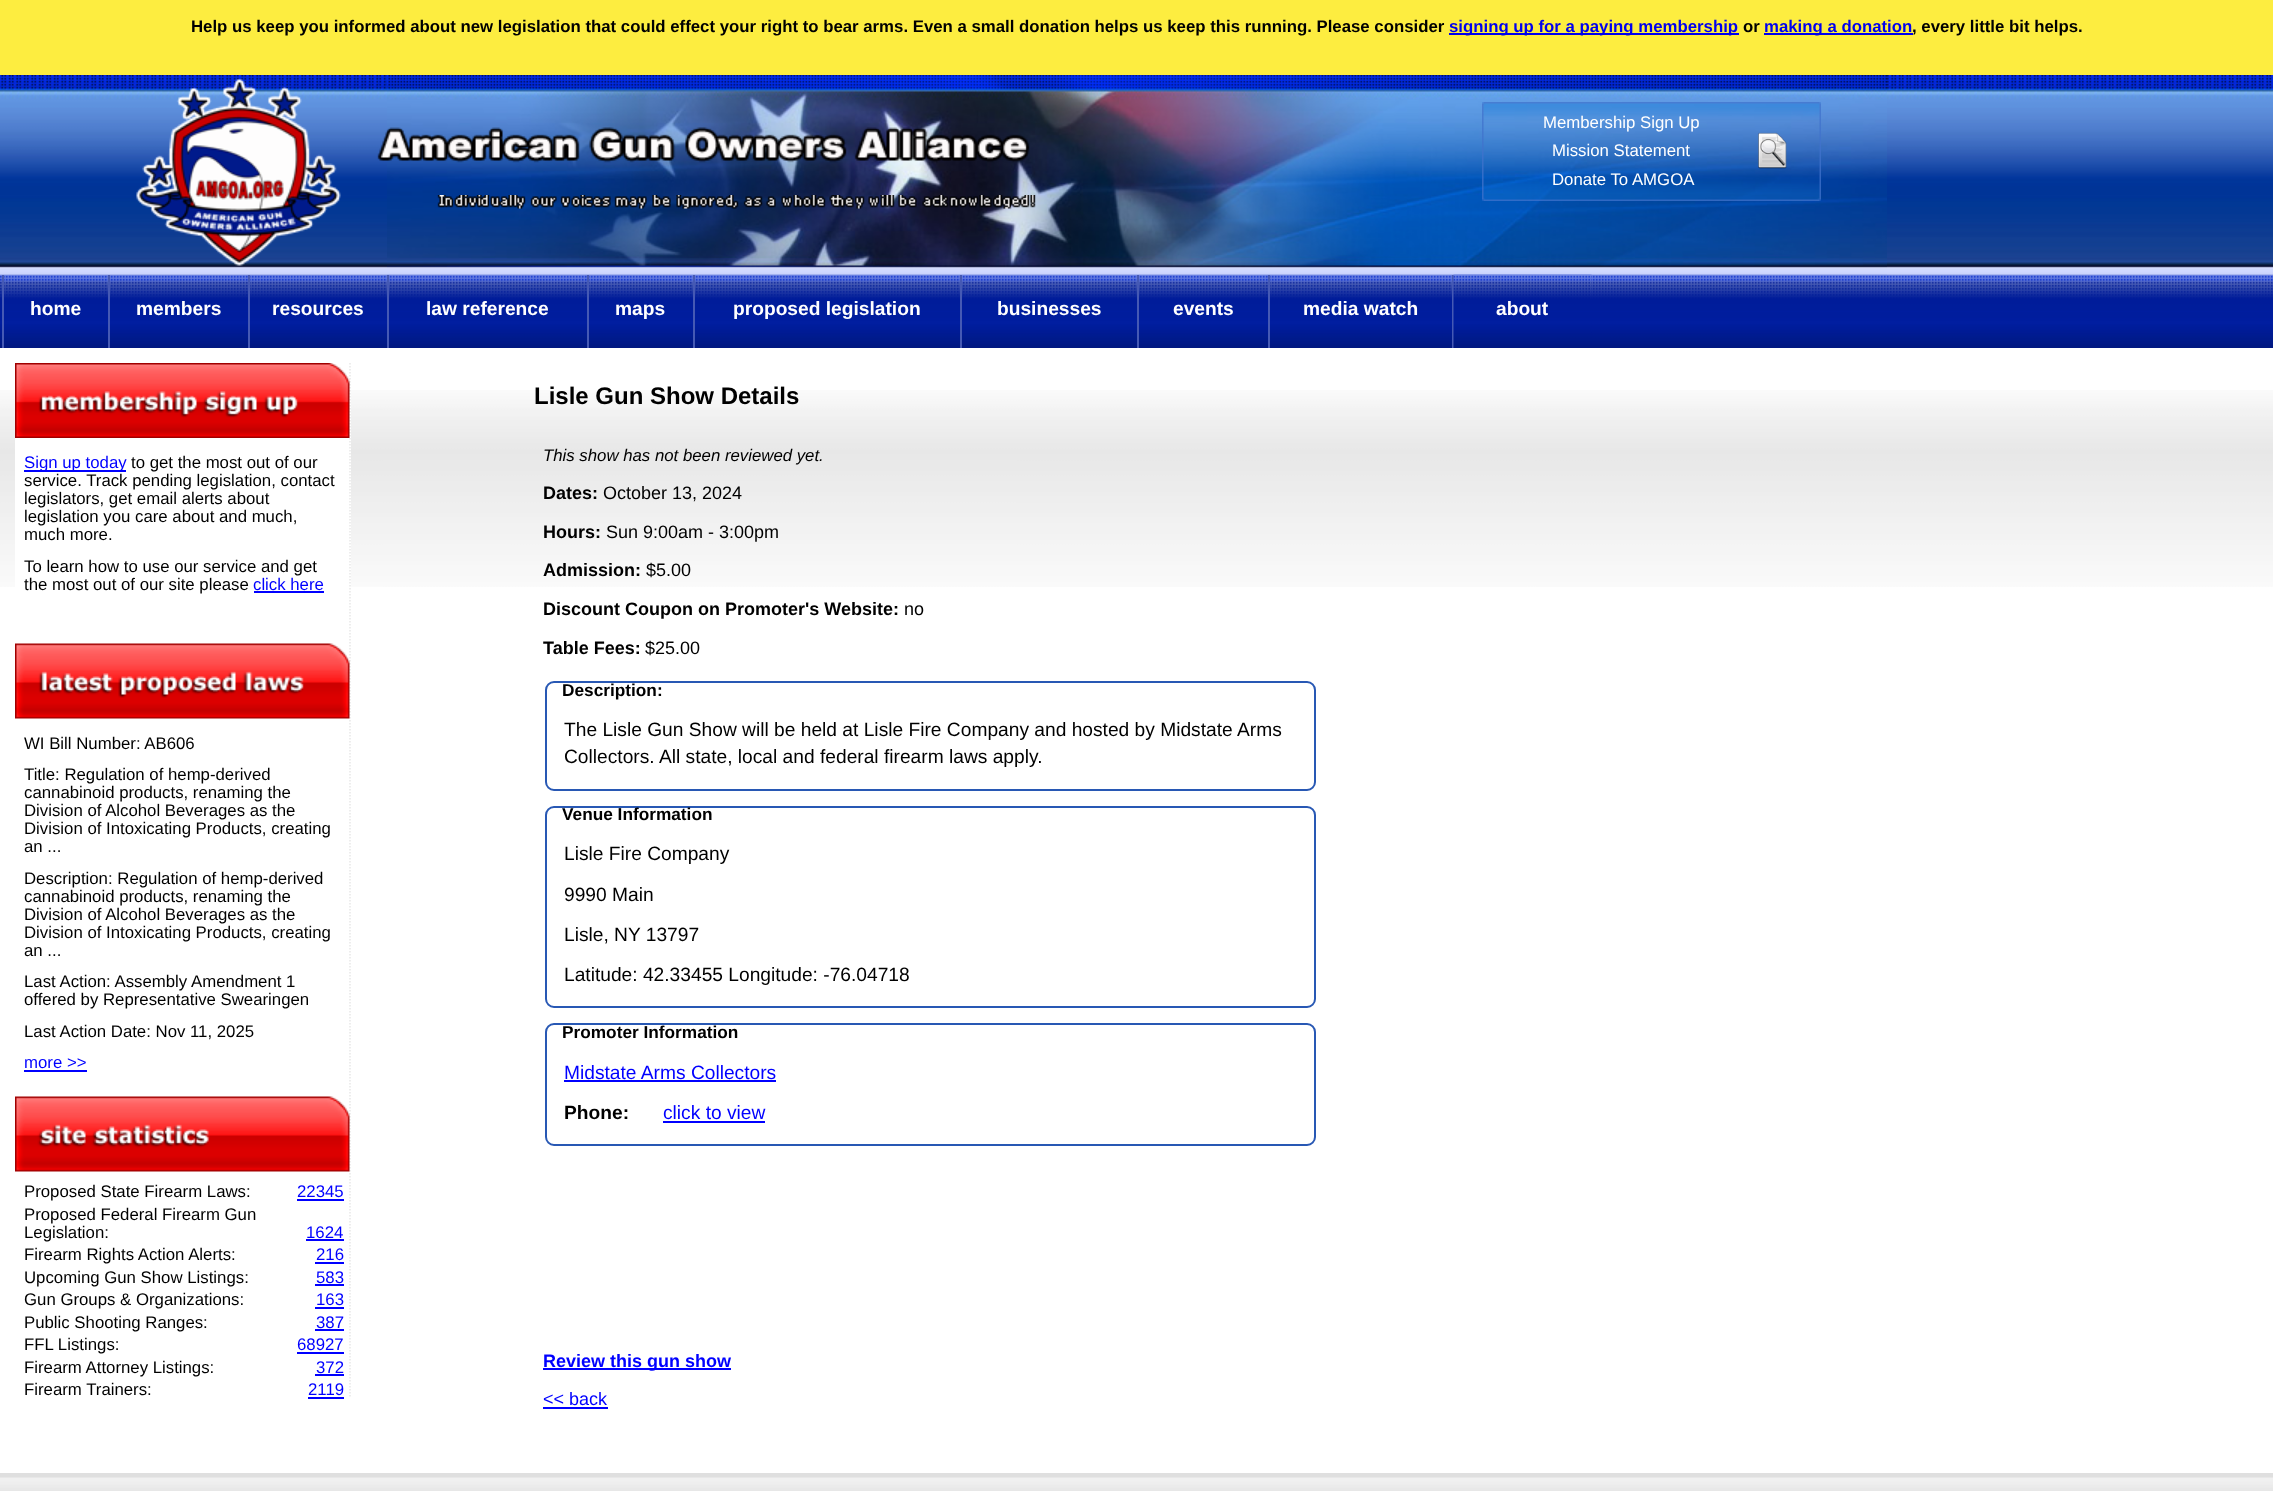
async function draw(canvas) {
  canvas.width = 2273
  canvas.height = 1491
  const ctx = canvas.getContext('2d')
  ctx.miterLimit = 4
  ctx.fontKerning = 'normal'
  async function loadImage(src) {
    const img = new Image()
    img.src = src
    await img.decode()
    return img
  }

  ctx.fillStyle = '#fff'
  ctx.fillRect(0, 0, 2273, 1491)
  ctx.fillStyle = '#fded40'
  ctx.fillRect(0, 0, 2273, 75)
  ctx.font = 'bold 16.8px Liberation Sans'
  ctx.fillStyle = '#000'
  ctx.fillText('Help us keep you informed about new legislation that could effect your right to bear arms. Even a small donation helps us keep this running. Please consider', 191, 32)
  ctx.fillStyle = '#00e'
  ctx.fillRect(1449, 33, 290, 2)
  ctx.fillText('signing up for a paying membership', 1449, 32)
  ctx.fillStyle = '#000'
  ctx.fillText('or', 1743, 32)
  ctx.fillStyle = '#00e'
  ctx.fillRect(1764, 33, 149, 2)
  ctx.fillText('making a donation', 1764, 32)
  ctx.fillStyle = '#000'
  ctx.fillText(', every little bit helps.', 1912, 32)
  ctx.drawImage(await loadImage('image0.png'), 0, 75, 2273, 200)
  ctx.drawImage(await loadImage('image1.png'), 387, 75, 1500, 200)
  ctx.drawImage(await loadImage('image2.png'), 136, 79, 205, 187)
  ctx.drawImage(await loadImage('image3.png'), 377, 127, 653, 36)
  ctx.drawImage(await loadImage('image4.png'), 1482, 102, 339, 99)
  ctx.font = '16.8px Liberation Sans'
  ctx.fillStyle = '#fff'
  ctx.fillText('Membership Sign Up', 1543, 128)
  ctx.fillText('Mission Statement', 1552, 156)
  ctx.drawImage(await loadImage('image5.png'), 1758, 132, 29, 37)
  ctx.fillText('Donate To AMGOA', 1552, 185)
  ctx.drawImage(await loadImage('image6.png'), 437, 195, 599, 14)
  ctx.drawImage(await loadImage('image7.png'), 0, 274, 2273, 74)
  ctx.fillStyle = '#4559b4'
  ctx.fillRect(2, 275, 2, 73)
  ctx.font = 'bold 19.2px Liberation Sans'
  ctx.fillStyle = '#fff'
  ctx.fillText('home', 30, 315)
  ctx.fillStyle = '#4559b4'
  ctx.fillRect(108, 275, 2, 73)
  ctx.fillStyle = '#fff'
  ctx.fillText('members', 136, 315)
  ctx.fillStyle = '#4559b4'
  ctx.fillRect(248, 275, 2, 73)
  ctx.fillStyle = '#fff'
  ctx.fillText('resources', 272, 315)
  ctx.fillStyle = '#4559b4'
  ctx.fillRect(387, 275, 2, 73)
  ctx.fillStyle = '#fff'
  ctx.fillText('law reference', 426, 315)
  ctx.fillStyle = '#4559b4'
  ctx.fillRect(587, 275, 2, 73)
  ctx.fillStyle = '#fff'
  ctx.fillText('maps', 615, 315)
  ctx.fillStyle = '#4559b4'
  ctx.fillRect(693, 275, 2, 73)
  ctx.fillStyle = '#fff'
  ctx.fillText('proposed legislation', 733, 315)
  ctx.fillStyle = '#4559b4'
  ctx.fillRect(960, 275, 2, 73)
  ctx.fillStyle = '#fff'
  ctx.fillText('businesses', 997, 315)
  ctx.fillStyle = '#4559b4'
  ctx.fillRect(1137, 275, 2, 73)
  ctx.fillStyle = '#fff'
  ctx.fillText('events', 1173, 315)
  ctx.fillStyle = '#4559b4'
  ctx.fillRect(1268, 275, 2, 73)
  ctx.fillStyle = '#fff'
  ctx.fillText('media watch', 1303, 315)
  ctx.fillStyle = '#4559b4'
  ctx.fillRect(1452, 275, 2, 73)
  ctx.drawImage(await loadImage('image8.png'), 1453, 274, 139, 74)
  ctx.fillStyle = '#fff'
  ctx.fillText('about', 1496, 315)
  ctx.drawImage(await loadImage('image9.png'), 0, 390, 2273, 197)
  ctx.fillRect(15, 390, 336, 197)
  ctx.beginPath()
  ctx.moveTo(350, 363)
  ctx.lineTo(350, 1398)
  ctx.strokeStyle = '#e8e8e8'
  ctx.lineWidth = 1.5
  ctx.setLineDash([1.5, 1.5])
  ctx.stroke()
  ctx.drawImage(await loadImage('image10.png'), 15, 363, 335, 75)
  ctx.fillStyle = '#00f'
  ctx.fillRect(24, 470, 102, 2)
  ctx.font = '16.8px Liberation Sans'
  ctx.fillText('Sign up today', 24, 468)
  ctx.fillStyle = '#000'
  ctx.fillText('to get the most out of our', 131, 468)
  ctx.fillText('service. Track pending legislation, contact', 24, 486)
  ctx.fillText('legislators, get email alerts about', 24, 504)
  ctx.fillText('legislation you care about and much,', 24, 522)
  ctx.fillText('much more.', 24, 540)
  ctx.fillText('To learn how to use our service and get', 24, 572)
  ctx.fillText('the most out of our site please', 24, 590)
  ctx.fillStyle = '#00f'
  ctx.fillText('click here', 253, 590)
  ctx.fillRect(254, 591, 70, 2)
  ctx.drawImage(await loadImage('image11.png'), 15, 643, 335, 76)
  ctx.fillStyle = '#000'
  ctx.fillText('WI Bill Number: AB606', 24, 749)
  ctx.fillText('Title: Regulation of hemp-derived', 24, 780)
  ctx.fillText('cannabinoid products, renaming the', 24, 798)
  ctx.fillText('Division of Alcohol Beverages as the', 24, 816)
  ctx.fillText('Division of Intoxicating Products, creating', 24, 834)
  ctx.fillText('an ...', 24, 852)
  ctx.fillText('Description: Regulation of hemp-derived', 24, 884)
  ctx.fillText('cannabinoid products, renaming the', 24, 902)
  ctx.fillText('Division of Alcohol Beverages as the', 24, 920)
  ctx.fillText('Division of Intoxicating Products, creating', 24, 938)
  ctx.fillText('an ...', 24, 956)
  ctx.fillText('Last Action: Assembly Amendment 1', 24, 987)
  ctx.fillText('offered by Representative Swearingen', 24, 1005)
  ctx.fillText('Last Action Date: Nov 11, 2025', 24, 1037)
  ctx.fillStyle = '#00f'
  ctx.fillText('more >>', 24, 1068)
  ctx.fillRect(24, 1070, 63, 2)
  ctx.drawImage(await loadImage('image12.png'), 15, 1096, 335, 76)
  ctx.fillStyle = '#000'
  ctx.fillText('Proposed State Firearm Laws:', 24, 1197)
  ctx.fillStyle = '#00f'
  ctx.fillText('22345', 297, 1197)
  ctx.fillRect(297, 1199, 47, 2)
  ctx.fillStyle = '#000'
  ctx.fillText('Proposed Federal Firearm Gun', 24, 1220)
  ctx.fillText('Legislation:', 24, 1238)
  ctx.fillStyle = '#00f'
  ctx.fillText('1624', 306, 1238)
  ctx.fillRect(306, 1239, 38, 2)
  ctx.fillStyle = '#000'
  ctx.fillText('Firearm Rights Action Alerts:', 24, 1260)
  ctx.fillStyle = '#00f'
  ctx.fillText('216', 316, 1260)
  ctx.fillRect(315, 1262, 29, 2)
  ctx.fillStyle = '#000'
  ctx.fillText('Upcoming Gun Show Listings:', 24, 1283)
  ctx.fillStyle = '#00f'
  ctx.fillText('583', 316, 1283)
  ctx.fillRect(315, 1284, 29, 2)
  ctx.fillStyle = '#000'
  ctx.fillText('Gun Groups & Organizations:', 24, 1305)
  ctx.fillStyle = '#00f'
  ctx.fillText('163', 316, 1305)
  ctx.fillRect(315, 1307, 29, 2)
  ctx.fillStyle = '#000'
  ctx.fillText('Public Shooting Ranges:', 24, 1328)
  ctx.fillStyle = '#00f'
  ctx.fillText('387', 316, 1328)
  ctx.fillRect(315, 1329, 29, 2)
  ctx.fillStyle = '#000'
  ctx.fillText('FFL Listings:', 24, 1350)
  ctx.fillStyle = '#00f'
  ctx.fillText('68927', 297, 1350)
  ctx.fillRect(297, 1352, 47, 2)
  ctx.fillStyle = '#000'
  ctx.fillText('Firearm Attorney Listings:', 24, 1373)
  ctx.fillStyle = '#00f'
  ctx.fillText('372', 316, 1373)
  ctx.fillRect(315, 1374, 29, 2)
  ctx.fillStyle = '#000'
  ctx.fillText('Firearm Trainers:', 24, 1395)
  ctx.fillStyle = '#00f'
  ctx.fillText('2119', 308, 1395)
  ctx.fillRect(308, 1397, 36, 2)
  ctx.font = 'bold 24px Liberation Sans'
  ctx.fillStyle = '#000'
  ctx.fillText('Lisle Gun Show Details', 534, 404)
  ctx.font = 'italic 16.8px Liberation Sans'
  ctx.fillText('This show has not been reviewed yet.', 543, 461)
  ctx.font = 'bold 18px Liberation Sans'
  ctx.fillText('Dates:', 543, 499)
  ctx.font = '18px Liberation Sans'
  ctx.fillText('October 13, 2024', 603, 499)
  ctx.font = 'bold 18px Liberation Sans'
  ctx.fillText('Hours:', 543, 538)
  ctx.font = '18px Liberation Sans'
  ctx.fillText('Sun 9:00am - 3:00pm', 606, 538)
  ctx.font = 'bold 18px Liberation Sans'
  ctx.fillText('Admission:', 543, 576)
  ctx.font = '18px Liberation Sans'
  ctx.fillText('$5.00', 646, 576)
  ctx.font = 'bold 18px Liberation Sans'
  ctx.fillText('Discount Coupon on Promoter\'s Website:', 543, 615)
  ctx.font = '18px Liberation Sans'
  ctx.fillText('no', 904, 615)
  ctx.font = 'bold 18px Liberation Sans'
  ctx.fillText('Table Fees:', 543, 654)
  ctx.font = '18px Liberation Sans'
  ctx.fillText('$25.00', 645, 654)
  ctx.beginPath()
  ctx.roundRect(546, 682, 769, 108, 8)
  ctx.strokeStyle = '#2858b4'
  ctx.lineWidth = 2
  ctx.setLineDash([])
  ctx.stroke()
  ctx.font = 'bold 17.25px Liberation Sans'
  ctx.fillText('Description:', 562, 696)
  ctx.font = '19.2px Liberation Sans'
  ctx.fillText('The Lisle Gun Show will be held at Lisle Fire Company and hosted by Midstate Arms', 564, 736)
  ctx.fillText('Collectors. All state, local and federal firearm laws apply.', 564, 763)
  ctx.beginPath()
  ctx.roundRect(546, 807, 769, 200, 8)
  ctx.stroke()
  ctx.font = 'bold 17.25px Liberation Sans'
  ctx.fillText('Venue Information', 562, 820)
  ctx.font = '19.2px Liberation Sans'
  ctx.fillText('Lisle Fire Company', 564, 860)
  ctx.fillText('9990 Main', 564, 901)
  ctx.fillText('Lisle, NY 13797', 564, 941)
  ctx.fillText('Latitude: 42.33455 Longitude: -76.04718', 564, 981)
  ctx.beginPath()
  ctx.roundRect(546, 1024, 769, 121, 8)
  ctx.stroke()
  ctx.font = 'bold 17.25px Liberation Sans'
  ctx.fillText('Promoter Information', 562, 1038)
  ctx.font = '19.2px Liberation Sans'
  ctx.fillStyle = '#00f'
  ctx.fillText('Midstate Arms Collectors', 564, 1079)
  ctx.fillRect(564, 1080, 212, 2)
  ctx.font = 'bold 19.2px Liberation Sans'
  ctx.fillStyle = '#000'
  ctx.fillText('Phone:', 564, 1119)
  ctx.font = '19.2px Liberation Sans'
  ctx.fillStyle = '#00f'
  ctx.fillText('click to view', 663, 1119)
  ctx.fillRect(663, 1121, 102, 2)
  ctx.fillRect(543, 1368, 188, 2)
  ctx.font = 'bold 18px Liberation Sans'
  ctx.fillText('Review this gun show', 543, 1367)
  ctx.font = '18px Liberation Sans'
  ctx.fillText('<< back', 543, 1405)
  ctx.fillRect(543, 1407, 65, 2)
  ctx.drawImage(await loadImage('image13.png'), 0, 1473, 2273, 18)
}

draw(document.querySelector('canvas'))
